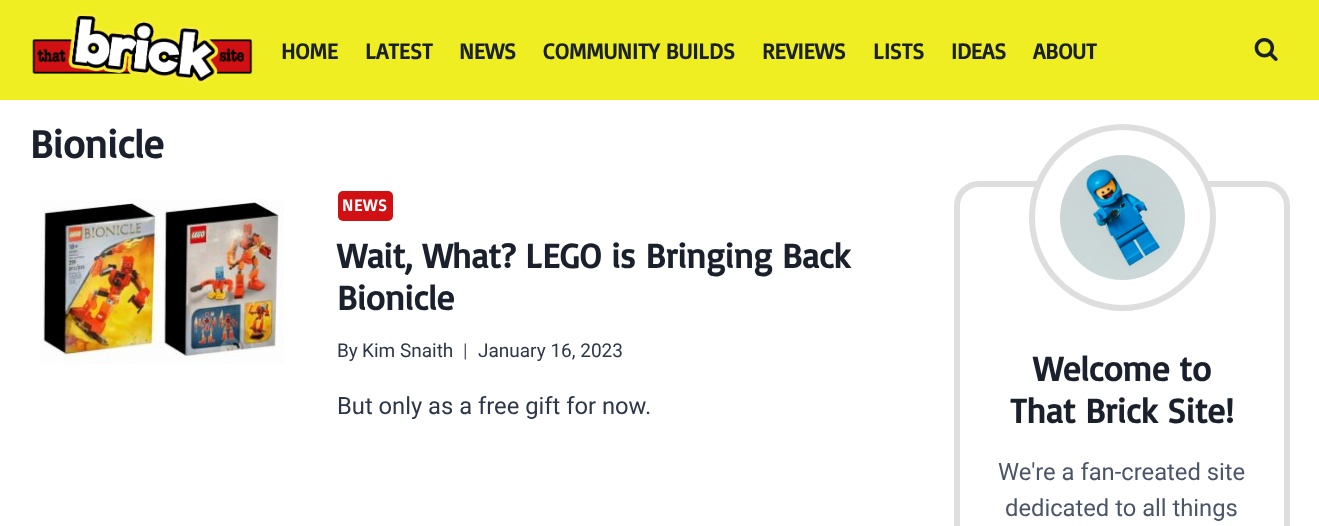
async function draw(canvas) {
  canvas.width = 1319
  canvas.height = 526
  const ctx = canvas.getContext('2d')
  ctx.miterLimit = 4
  ctx.fontKerning = 'normal'
  async function loadImage(src) {
    const img = new Image()
    img.src = src
    await img.decode()
    return img
  }

  ctx.fillStyle = '#fff'
  ctx.fillRect(0, 0, 1319, 526)
  ctx.fillStyle = '#ee2'
  ctx.fillRect(0, 0, 1319, 100)
  ctx.drawImage(await loadImage('image0.png'), 32, 12, 221, 72)
  ctx.font = 'bold 22.5px Basic'
  ctx.fillStyle = '#1a202c'
  ctx.fillText('HOME', 281, 59)
  ctx.fillText('LATEST', 365, 59)
  ctx.fillText('NEWS', 459, 59)
  ctx.fillText('COMMUNITY BUILDS', 543, 59)
  ctx.fillText('REVIEWS', 762, 59)
  ctx.fillText('LISTS', 873, 59)
  ctx.fillText('IDEAS', 951, 59)
  ctx.fillText('ABOUT', 1033, 59)
  ctx.drawImage(await loadImage('image1.png'), 1254, 38, 24, 23)
  ctx.font = 'bold 40px Basic'
  ctx.fillText('Bionicle', 30, 158)
  ctx.drawImage(await loadImage('image2.png'), 40, 199, 244, 165)
  ctx.fillStyle = '#d01012'
  ctx.beginPath()
  ctx.roundRect(338, 191, 55, 30, 5)
  ctx.fill()
  ctx.letterSpacing = '1px'
  ctx.font = 'bold 16.5px Basic'
  ctx.fillStyle = '#fff'
  ctx.fillText('NEWS', 342, 211)
  ctx.letterSpacing = '0px'
  ctx.font = 'bold 35px Basic'
  ctx.fillStyle = '#1a202c'
  ctx.fillText('Wait, What? LEGO is Bringing Back', 337, 268)
  ctx.fillText('Bionicle', 337, 310)
  ctx.font = '19px Roboto'
  ctx.fillStyle = '#2d3748'
  ctx.fillText('By', 337, 357)
  ctx.fillText('Kim Snaith', 362, 357)
  ctx.fillStyle = '#575f6d'
  ctx.fillText('|', 463, 357)
  ctx.fillStyle = '#2d3748'
  ctx.fillText('January 16, 2023', 478, 357)
  ctx.font = '23.75px Roboto'
  ctx.fillText('But only as a free gift for now.', 337, 414)
  ctx.beginPath()
  ctx.roundRect(957, 184, 330, 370, 22)
  ctx.strokeStyle = '#dedede'
  ctx.lineWidth = 6
  ctx.stroke()
  ctx.fillStyle = '#fff'
  ctx.beginPath()
  ctx.arc(1122.5, 217.5, 90.5, 0, 2 * Math.PI)
  ctx.fill()
  ctx.stroke()
  ctx.drawImage(await loadImage('image3.png'), 1060, 155, 125, 125)
  ctx.font = 'bold 35px Basic'
  ctx.fillStyle = '#1a202c'
  ctx.fillText('Welcome to', 1033, 381)
  ctx.fillText('That Brick Site!', 1010, 423)
  ctx.font = '23.75px Roboto'
  ctx.fillStyle = '#4a5568'
  ctx.fillText('We\'re a fan-created site', 998, 480)
  ctx.fillText('dedicated to all things', 1005, 516)
}

draw(document.querySelector('canvas'))
